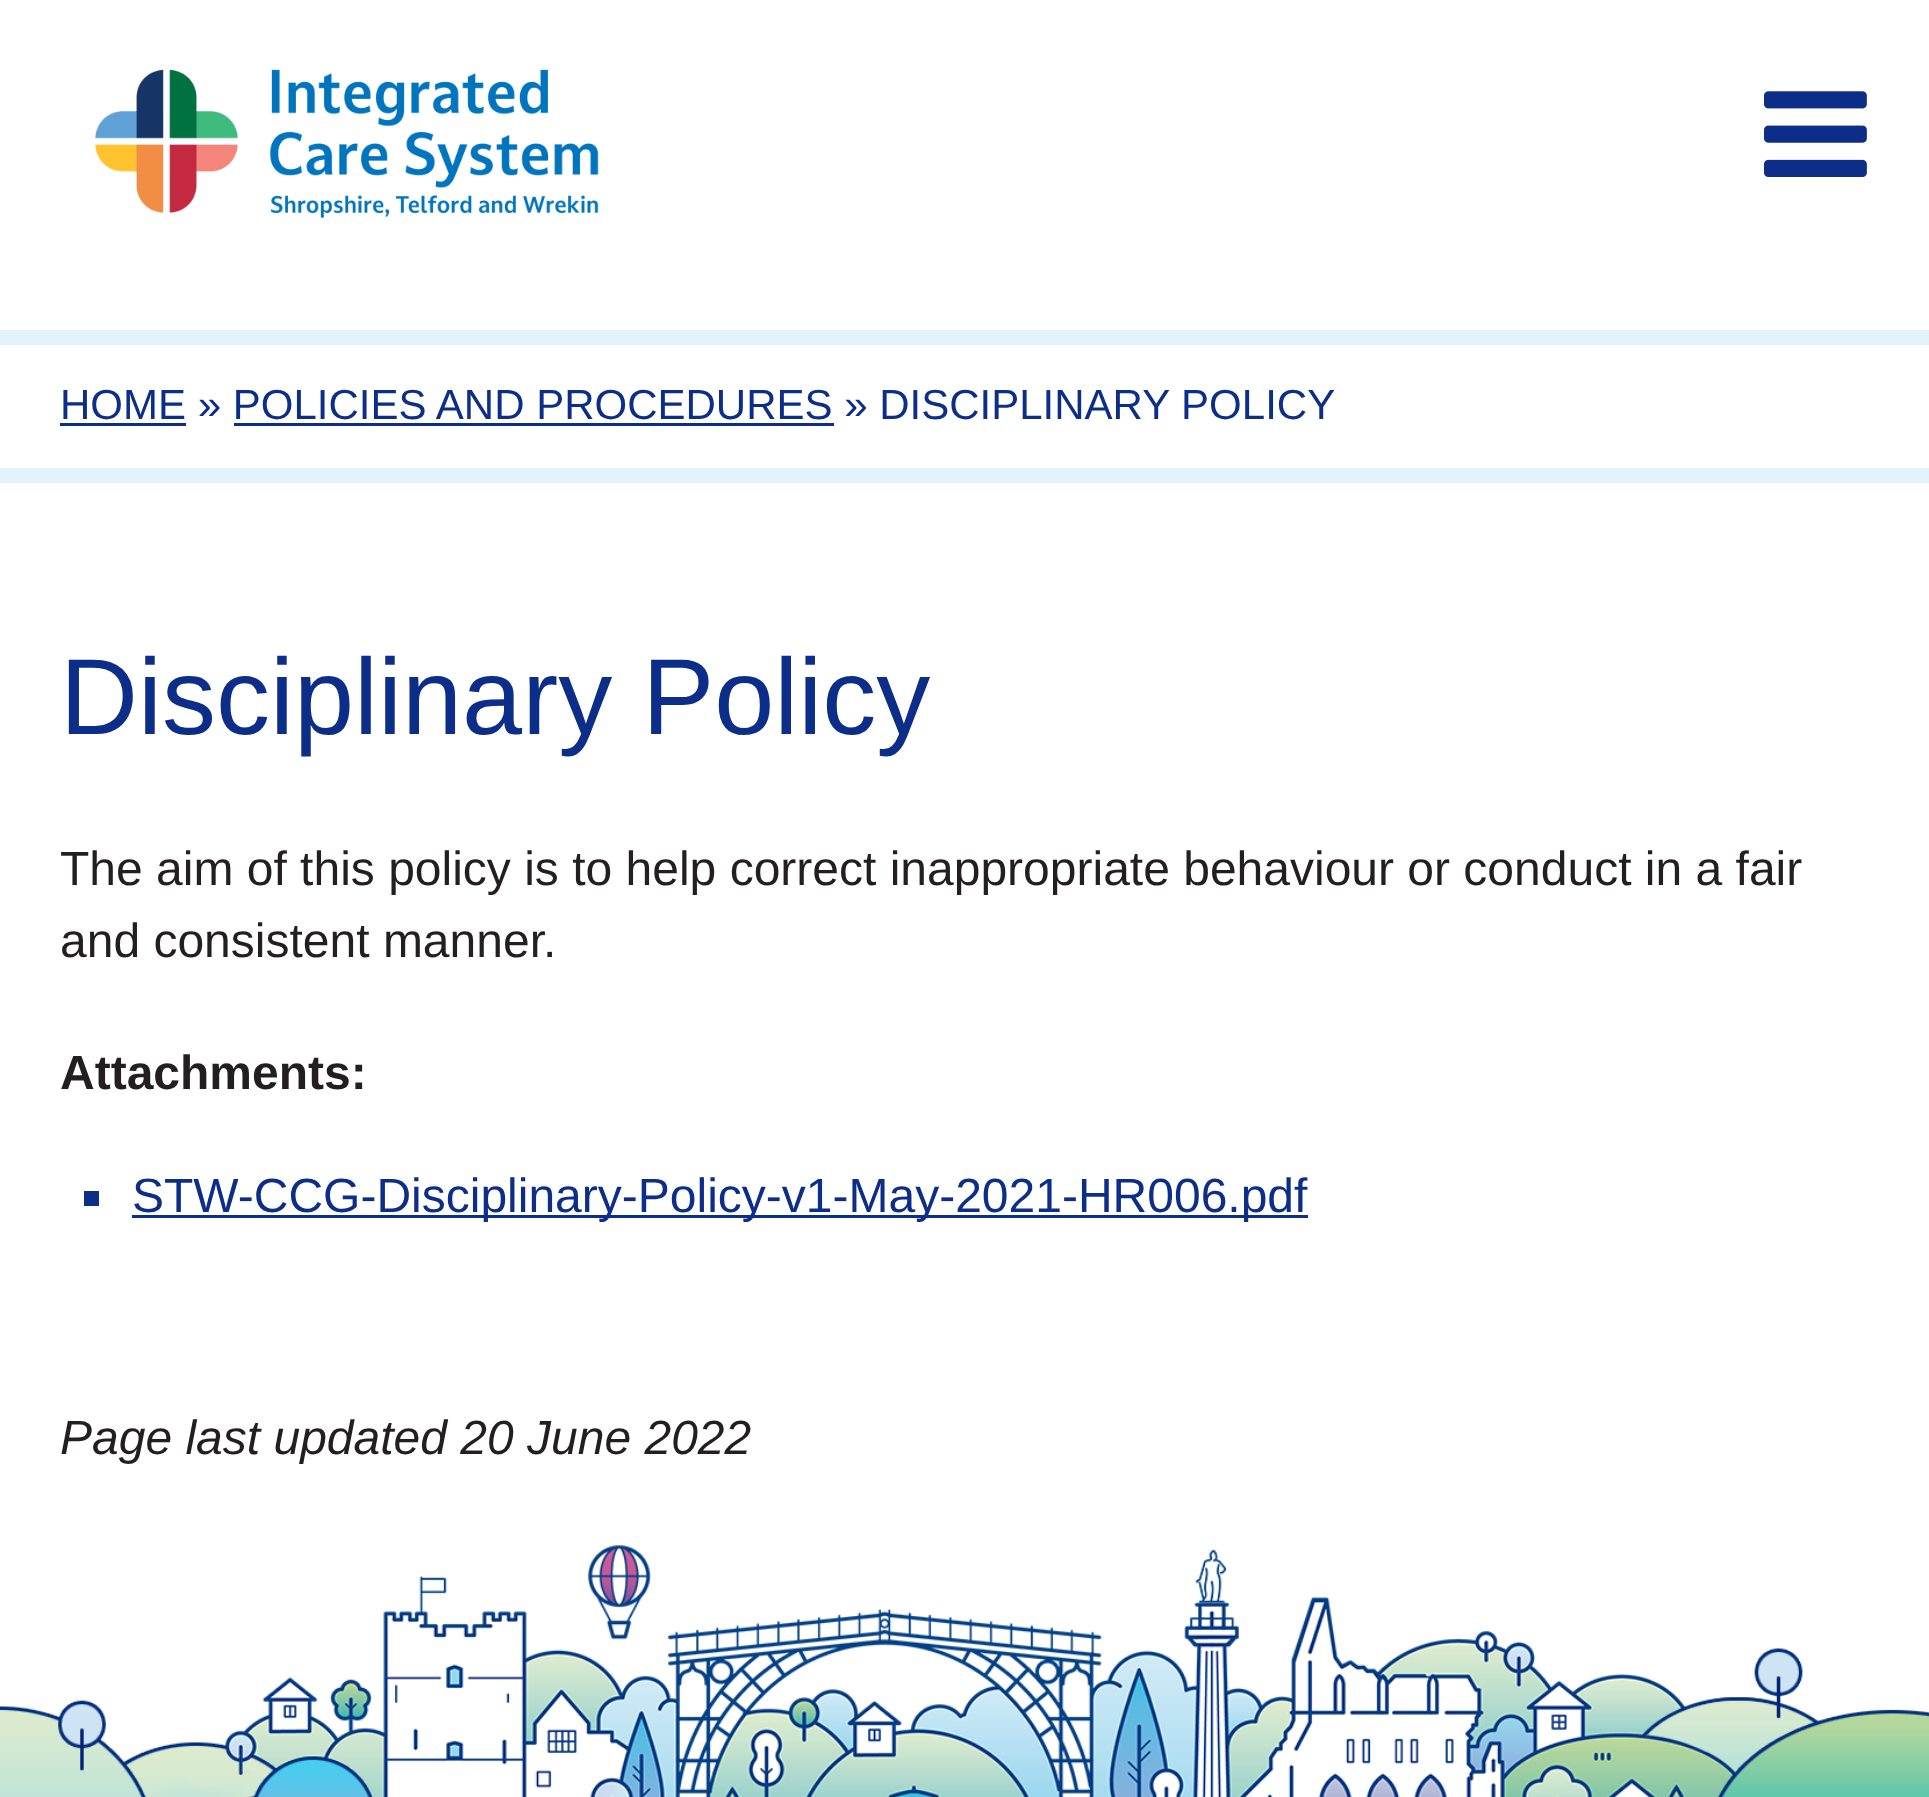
async function draw(canvas) {
  canvas.width = 1929
  canvas.height = 1797
  const ctx = canvas.getContext('2d')
  ctx.miterLimit = 4
  ctx.fontKerning = 'normal'
  async function loadImage(src) {
    const img = new Image()
    img.src = src
    await img.decode()
    return img
  }

  ctx.fillStyle = '#fff'
  ctx.fillRect(0, 0, 1929, 1797)
  ctx.drawImage(await loadImage('image0.png'), 95, 69, 504, 149)
  ctx.drawImage(await loadImage('image1.png'), 1764, 91, 103, 86)
  ctx.fillStyle = '#e2f3fd'
  ctx.fillRect(0, 330, 1929, 15)
  ctx.fillRect(0, 468, 1929, 15)
  ctx.font = '42px Liberation Sans'
  ctx.fillStyle = '#0c2e88'
  ctx.fillText('HOME » POLICIES AND PROCEDURES » DISCIPLINARY POLICY', 60, 419)
  ctx.fillRect(60, 423, 126, 3)
  ctx.fillRect(234, 423, 600, 3)
  ctx.font = '108px Liberation Sans'
  ctx.fillText('Disciplinary Policy', 60, 734)
  ctx.font = '48px Liberation Sans'
  ctx.fillStyle = '#231f20'
  ctx.fillText('The aim of this policy is to help correct inappropriate behaviour or conduct in a fair', 60, 885)
  ctx.fillText('and consistent manner.', 60, 957)
  ctx.font = 'bold 48px Liberation Sans'
  ctx.fillText('Attachments:', 60, 1089)
  ctx.fillStyle = '#0c2e88'
  ctx.fillRect(84, 1191, 15, 15)
  ctx.fillRect(132, 1215, 1176, 3)
  ctx.font = '48px Liberation Sans'
  ctx.fillText('STW-CCG-Disciplinary-Policy-v1-May-2021-HR006.pdf', 132, 1212)
  ctx.font = 'italic 48px Liberation Sans'
  ctx.fillStyle = '#231f20'
  ctx.fillText('Page last updated 20 June 2022', 60, 1454)
  ctx.drawImage(await loadImage('image2.png'), 0, 1545, 1929, 252)
}

draw(document.querySelector('canvas'))
